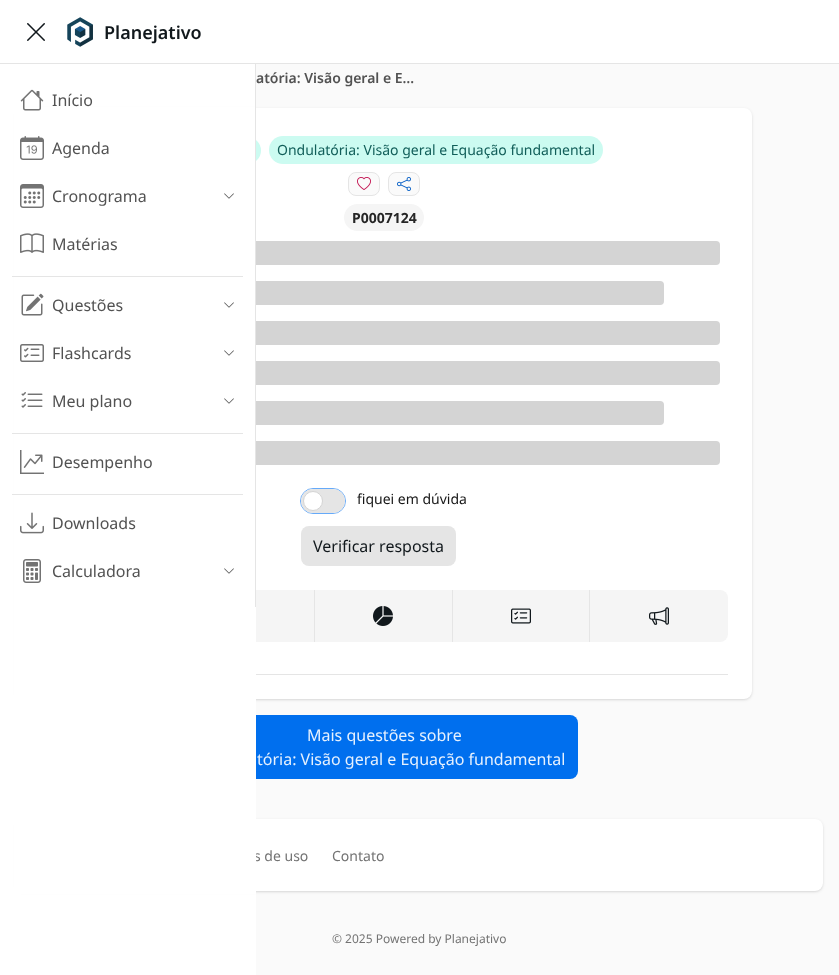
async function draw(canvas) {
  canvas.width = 839
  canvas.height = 975
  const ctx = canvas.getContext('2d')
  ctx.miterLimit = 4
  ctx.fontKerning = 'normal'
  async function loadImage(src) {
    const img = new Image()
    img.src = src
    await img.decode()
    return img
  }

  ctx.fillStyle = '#fff'
  ctx.fillRect(0, 0, 839, 975)
  ctx.fillStyle = '#e5e5e5'
  ctx.fillRect(0, 63, 839, 1)
  ctx.drawImage(await loadImage('image0.png'), 27, 23, 18, 18)
  ctx.drawImage(await loadImage('image1.png'), 67, 17, 26, 30)
  ctx.font = '600 18px Noto Sans'
  ctx.fillStyle = '#11181c'
  ctx.fillText('Planejativo', 104, 39)
  ctx.fillStyle = '#fafafa'
  ctx.fillRect(256, 64, 583, 911)
  ctx.fillStyle = '#0000001a'
  ctx.filter = 'blur(1px)'
  ctx.beginPath()
  ctx.roundRect(17, 110, 734, 589, 7)
  ctx.fill()
  ctx.filter = 'none'
  ctx.filter = 'blur(1.5px)'
  ctx.beginPath()
  ctx.roundRect(16, 109, 736, 591, 8)
  ctx.fill()
  ctx.filter = 'none'
  ctx.fillStyle = '#fff'
  ctx.beginPath()
  ctx.roundRect(16, 108, 736, 591, 8)
  ctx.fill()
  ctx.fillStyle = '#ccfbf1'
  ctx.beginPath()
  ctx.roundRect(209, 137, 52, 27, 13.5)
  ctx.fill()
  ctx.fillStyle = '#d4d4d4'
  ctx.beginPath()
  ctx.roundRect(48, 241, 672, 24, 4)
  ctx.fill()
  ctx.beginPath()
  ctx.roundRect(48, 281, 616, 24, 4)
  ctx.fill()
  ctx.beginPath()
  ctx.roundRect(48, 321, 672, 24, 4)
  ctx.fill()
  ctx.beginPath()
  ctx.roundRect(48, 361, 672, 24, 4)
  ctx.fill()
  ctx.beginPath()
  ctx.roundRect(48, 401, 616, 24, 4)
  ctx.fill()
  ctx.beginPath()
  ctx.roundRect(48, 441, 672, 24, 4)
  ctx.fill()
  ctx.fillStyle = '#006fee'
  ctx.beginPath()
  ctx.roundRect(190, 715, 388, 64, 8)
  ctx.fill()
  ctx.fillStyle = '#0000001a'
  ctx.filter = 'blur(1px)'
  ctx.beginPath()
  ctx.roundRect(17, 821, 805, 70, 7)
  ctx.fill()
  ctx.filter = 'none'
  ctx.filter = 'blur(1.5px)'
  ctx.beginPath()
  ctx.roundRect(16, 820, 807, 72, 8)
  ctx.fill()
  ctx.filter = 'none'
  ctx.fillStyle = '#fff'
  ctx.beginPath()
  ctx.roundRect(16, 819, 807, 72, 8)
  ctx.fill()
  ctx.font = '14px Noto Sans'
  ctx.fillStyle = '#737373'
  ctx.fillText('s de uso', 254, 861)
  ctx.fillStyle = '#fff'
  ctx.fillRect(14, 107, 242, 787)
  ctx.fillStyle = '#e5e5e5'
  ctx.fillRect(255, 64, 1, 543)
  ctx.drawImage(await loadImage('image2.png'), 20, 89, 24, 22)
  ctx.font = '16px Noto Sans'
  ctx.fillStyle = '#525252'
  ctx.fillText('Início', 52, 106)
  ctx.drawImage(await loadImage('image3.png'), 20, 136, 24, 24)
  ctx.fillText('Agenda', 52, 154)
  ctx.drawImage(await loadImage('image4.png'), 20, 184, 24, 24)
  ctx.fillText('Cronograma', 52, 202)
  ctx.drawImage(await loadImage('image5.png'), 224, 193, 10, 6)
  ctx.drawImage(await loadImage('image6.png'), 20, 233, 24, 20)
  ctx.fillText('Matérias', 52, 250)
  ctx.fillStyle = '#e5e5e5'
  ctx.fillRect(12, 276, 231, 1)
  ctx.drawImage(await loadImage('image7.png'), 21, 293, 23, 23)
  ctx.fillStyle = '#525252'
  ctx.fillText('Questões', 52, 311)
  ctx.drawImage(await loadImage('image5.png'), 224, 302, 10, 6)
  ctx.drawImage(await loadImage('image8.png'), 20, 344, 24, 18)
  ctx.fillText('Flashcards', 52, 359)
  ctx.drawImage(await loadImage('image5.png'), 224, 350, 10, 6)
  ctx.drawImage(await loadImage('image9.png'), 21, 392, 22, 16)
  ctx.fillText('Meu plano', 52, 407)
  ctx.drawImage(await loadImage('image5.png'), 224, 398, 10, 6)
  ctx.fillStyle = '#e5e5e5'
  ctx.fillRect(12, 433, 231, 1)
  ctx.drawImage(await loadImage('image10.png'), 20, 450, 24, 24)
  ctx.fillStyle = '#525252'
  ctx.fillText('Desempenho', 52, 468)
  ctx.fillStyle = '#e5e5e5'
  ctx.fillRect(12, 494, 231, 1)
  ctx.drawImage(await loadImage('image11.png'), 20, 512, 24, 22)
  ctx.fillStyle = '#525252'
  ctx.fillText('Downloads', 52, 529)
  ctx.drawImage(await loadImage('image12.png'), 23, 559, 18, 24)
  ctx.fillText('Calculadora', 52, 577)
  ctx.drawImage(await loadImage('image5.png'), 224, 568, 10, 6)
  ctx.font = '600 14px Noto Sans'
  ctx.fillText('atória: Visão geral e E…', 256, 83)
  ctx.fillStyle = '#ccfbf1'
  ctx.beginPath()
  ctx.roundRect(269, 136, 334, 28, 14)
  ctx.fill()
  ctx.font = '14px Noto Sans'
  ctx.fillStyle = '#115e59'
  ctx.fillText('Ondulatória: Visão geral e Equação fundamental', 277, 155)
  ctx.fillStyle = '#fafafa'
  ctx.beginPath()
  ctx.roundRect(348.5, 172.5, 31, 23, 7.5)
  ctx.fill()
  ctx.strokeStyle = '#e5e5e5'
  ctx.stroke()
  ctx.drawImage(await loadImage('image13.png'), 357, 177, 14, 13)
  ctx.beginPath()
  ctx.roundRect(388.5, 172.5, 31, 23, 7.5)
  ctx.fill()
  ctx.stroke()
  ctx.drawImage(await loadImage('image14.png'), 397, 177, 14, 14)
  ctx.fillStyle = '#f5f5f5'
  ctx.beginPath()
  ctx.roundRect(344, 204, 80, 27, 13.5)
  ctx.fill()
  ctx.font = 'bold 14px Noto Sans'
  ctx.fillStyle = '#262626'
  ctx.fillText('P0007124', 352, 223)
  ctx.beginPath()
  ctx.roundRect(300.5, 488.5, 45, 25, 12.5)
  ctx.strokeStyle = '#66aaf9'
  ctx.stroke()
  ctx.fillStyle = '#e5e5e5'
  ctx.beginPath()
  ctx.roundRect(301, 489, 44, 24, 12)
  ctx.fill()
  ctx.fillStyle = '#fff'
  ctx.beginPath()
  ctx.arc(313, 501, 9.5, 0, 2 * Math.PI)
  ctx.fill()
  ctx.strokeStyle = '#d4d4d4'
  ctx.stroke()
  ctx.font = '14px Noto Sans'
  ctx.fillStyle = '#171717'
  ctx.fillText('fiquei em dúvida', 357, 504)
  ctx.fillStyle = '#e5e5e5'
  ctx.beginPath()
  ctx.roundRect(301, 526, 155, 40, 8)
  ctx.fill()
  ctx.font = '16px Noto Sans'
  ctx.fillStyle = '#11181c'
  ctx.fillText('Verificar resposta', 313, 552)
  ctx.fillStyle = '#e5e5e5'
  ctx.fillRect(256, 674, 472, 1)
  ctx.fillStyle = '#f5f5f5'
  ctx.fillRect(256, 590, 58, 52)
  ctx.fillStyle = '#e5e5e5'
  ctx.fillRect(314, 590, 1, 52)
  ctx.fillStyle = '#f5f5f5'
  ctx.fillRect(315, 590, 137, 52)
  ctx.fillStyle = '#e5e5e5'
  ctx.fillRect(452, 590, 1, 52)
  ctx.drawImage(await loadImage('image15.png'), 373, 606, 20, 20)
  ctx.fillStyle = '#f5f5f5'
  ctx.fillRect(453, 590, 136, 52)
  ctx.fillStyle = '#e5e5e5'
  ctx.fillRect(589, 590, 1, 52)
  ctx.drawImage(await loadImage('image16.png'), 511, 608, 20, 16)
  ctx.fillStyle = '#f5f5f5'
  ctx.beginPath()
  ctx.roundRect(590, 590, 138, 52, [0, 8, 8, 0])
  ctx.fill()
  ctx.drawImage(await loadImage('image17.png'), 649, 607, 20, 18)
  ctx.fillStyle = '#e6f1fe'
  ctx.fillText('Mais questões sobre', 307, 741)
  ctx.fillText('tória: Visão geral e Equação fundamental', 257, 765)
  ctx.font = '14px Noto Sans'
  ctx.fillStyle = '#737373'
  ctx.fillText('Contato', 332, 861)
  ctx.font = '12px Noto Sans'
  ctx.fillText('© 2025 Powered by Planejativo', 332, 943)
}

draw(document.querySelector('canvas'))
